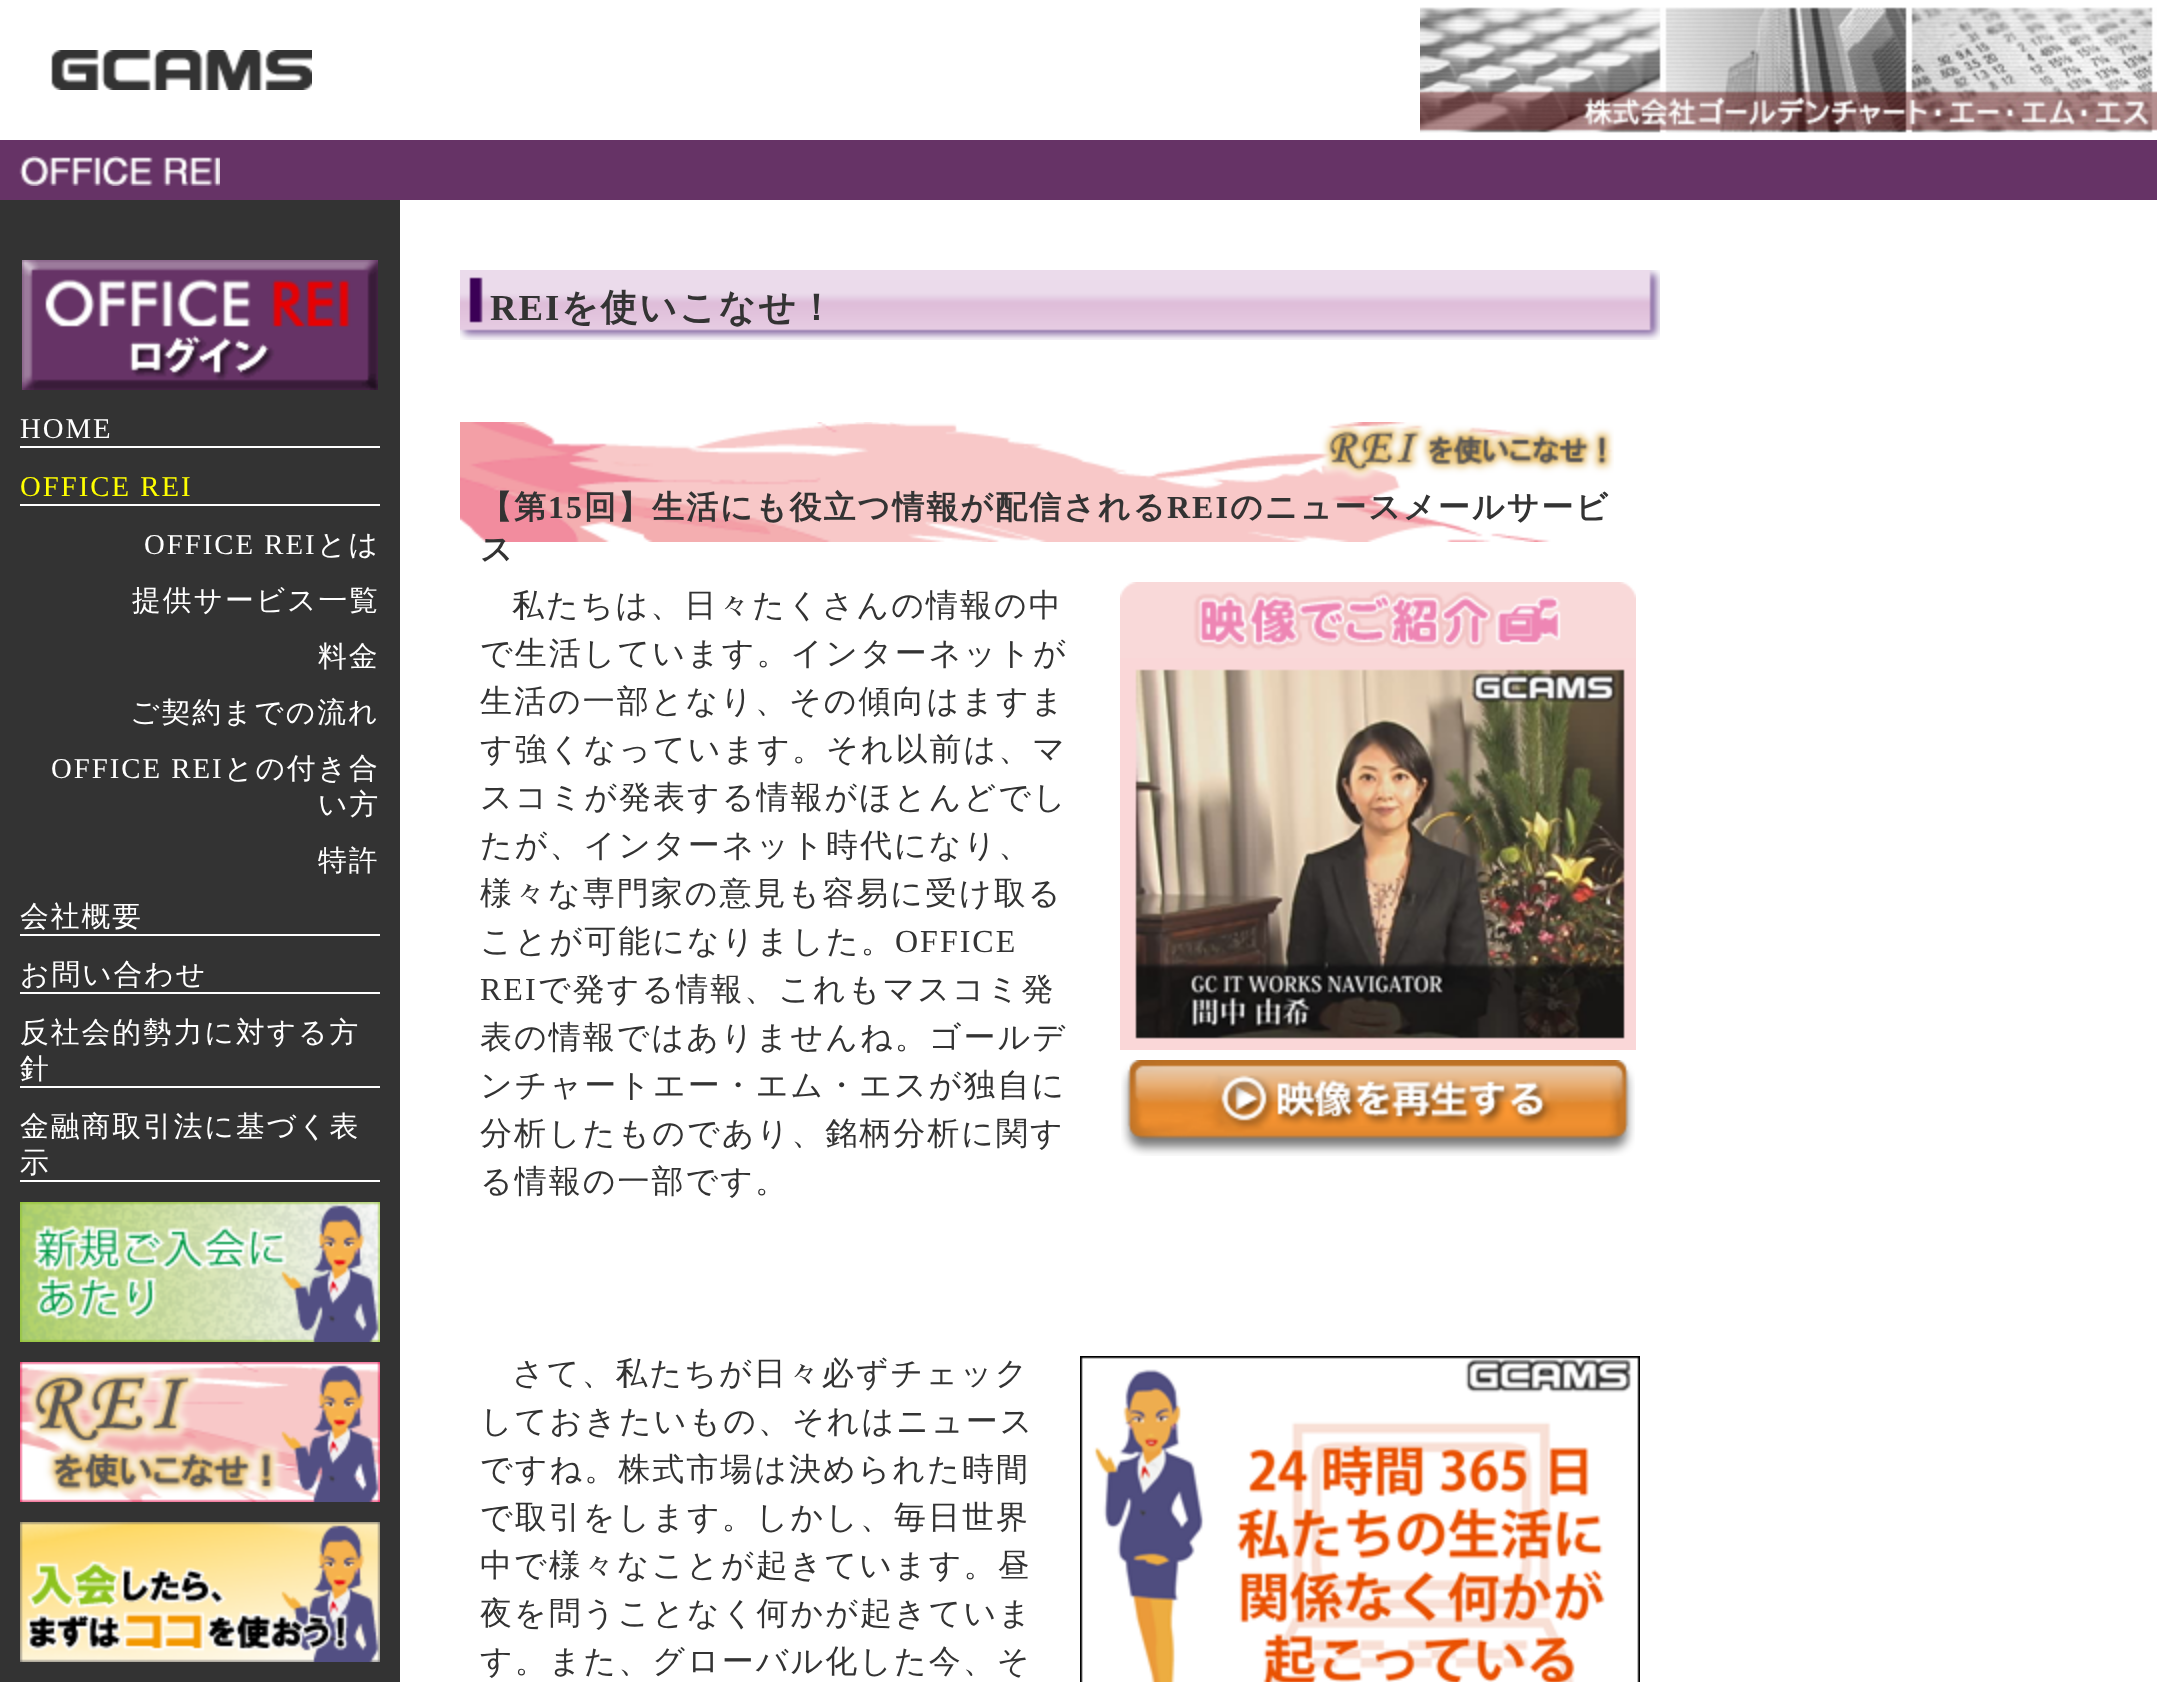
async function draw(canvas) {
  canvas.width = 2157
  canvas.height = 1682
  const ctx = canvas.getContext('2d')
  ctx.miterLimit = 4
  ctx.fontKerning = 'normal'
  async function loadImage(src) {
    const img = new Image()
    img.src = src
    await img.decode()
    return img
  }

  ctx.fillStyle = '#fff'
  ctx.fillRect(0, 0, 2157, 1682)
  ctx.drawImage(await loadImage('image0.png'), 51, 50, 261, 40)
  ctx.drawImage(await loadImage('image1.png'), 1420, 7, 737, 126)
  ctx.fillStyle = '#636'
  ctx.fillRect(0, 140, 2157, 60)
  ctx.drawImage(await loadImage('image2.png'), 19, 156, 201, 30)
  ctx.fillStyle = '#333'
  ctx.fillRect(0, 200, 400, 1482)
  ctx.drawImage(await loadImage('image3.png'), 22, 260, 356, 130)
  ctx.fillStyle = '#fff'
  ctx.fillRect(20, 446, 360, 2)
  ctx.letterSpacing = '2px'
  ctx.font = '28.75px Liberation Serif'
  ctx.fillText('HOME', 20, 438)
  ctx.fillRect(20, 504, 360, 2)
  ctx.fillStyle = '#ff0'
  ctx.fillText('OFFICE REI', 20, 496)
  ctx.fillStyle = '#fff'
  ctx.fillText('OFFICE REI', 144, 554)
  ctx.font = '500 28.75px WenQuanYi Zen Hei'
  ctx.fillText('とは', 317, 554)
  ctx.fillText('提供サービス一覧', 132, 610)
  ctx.fillText('料金', 318, 666)
  ctx.fillText('ご契約までの流れ', 130, 722)
  ctx.font = '28.75px Liberation Serif'
  ctx.fillText('OFFICE REI', 51, 778)
  ctx.font = '500 28.75px WenQuanYi Zen Hei'
  ctx.fillText('との付き合', 224, 778)
  ctx.fillText('い方', 318, 814)
  ctx.fillText('特許', 318, 870)
  ctx.fillRect(20, 934, 360, 2)
  ctx.fillText('会社概要', 20, 926)
  ctx.fillRect(20, 992, 360, 2)
  ctx.fillText('お問い合わせ', 20, 984)
  ctx.fillRect(20, 1086, 360, 2)
  ctx.fillText('反社会的勢力に対する方', 20, 1042)
  ctx.fillText('針', 20, 1078)
  ctx.fillRect(20, 1180, 360, 2)
  ctx.fillText('金融商取引法に基づく表', 20, 1136)
  ctx.fillText('示', 20, 1172)
  ctx.drawImage(await loadImage('image4.png'), 20, 1202, 360, 140)
  ctx.drawImage(await loadImage('image5.png'), 20, 1362, 360, 140)
  ctx.drawImage(await loadImage('image6.png'), 20, 1522, 360, 140)
  ctx.drawImage(await loadImage('image7.png'), 460, 270, 1200, 70)
  ctx.font = 'bold 36.75px Liberation Serif'
  ctx.fillStyle = '#333'
  ctx.fillText('REI', 490, 320)
  ctx.font = 'bold 36.75px WenQuanYi Zen Hei'
  ctx.fillText('を使いこなせ！', 561, 320)
  ctx.drawImage(await loadImage('image8.png'), 460, 422, 1154, 120)
  ctx.font = 'bold 32px WenQuanYi Zen Hei'
  ctx.fillText('【第', 480, 518)
  ctx.font = 'bold 32px Liberation Serif'
  ctx.fillText('15', 548, 518)
  ctx.font = 'bold 32px WenQuanYi Zen Hei'
  ctx.fillText('回】生活にも役立つ情報が配信される', 584, 518)
  ctx.font = 'bold 32px Liberation Serif'
  ctx.fillText('REI', 1167, 518)
  ctx.font = 'bold 32px WenQuanYi Zen Hei'
  ctx.fillText('のニュースメールサービ', 1230, 518)
  ctx.fillText('ス', 480, 560)
  ctx.font = '500 32px WenQuanYi Zen Hei'
  ctx.fillText('私たちは、日々たくさんの情報の中', 512, 616)
  ctx.fillText('で生活しています。インターネットが', 480, 664)
  ctx.fillText('生活の一部となり、その傾向はますま', 480, 712)
  ctx.fillText('す強くなっています。それ以前は、マ', 480, 760)
  ctx.fillText('スコミが発表する情報がほとんどでし', 480, 808)
  ctx.fillText('たが、インターネット時代になり、', 480, 856)
  ctx.fillText('様々な専門家の意見も容易に受け取る', 480, 904)
  ctx.fillText('ことが可能になりました。', 480, 952)
  ctx.font = '32px Liberation Serif'
  ctx.fillText('OFFICE', 895, 952)
  ctx.fillText('REI', 480, 1000)
  ctx.font = '500 32px WenQuanYi Zen Hei'
  ctx.fillText('で発する情報、これもマスコミ発', 538, 1000)
  ctx.fillText('表の情報ではありませんね。ゴールデ', 480, 1048)
  ctx.fillText('ンチャートエー・エム・エスが独自に', 480, 1096)
  ctx.fillText('分析したものであり、銘柄分析に関す', 480, 1144)
  ctx.fillText('る情報の一部です。', 480, 1192)
  ctx.drawImage(await loadImage('image9.png'), 1120, 582, 516, 76)
  ctx.drawImage(await loadImage('image10.png'), 1120, 658, 516, 392)
  ctx.drawImage(await loadImage('image11.png'), 1121, 1060, 514, 96)
  ctx.fillText('さて、私たちが日々必ずチェック', 512, 1384)
  ctx.drawImage(await loadImage('image12.png'), 1080, 1356, 560, 326)
  ctx.fillText('しておきたいもの、それはニュース', 480, 1432)
  ctx.fillText('ですね。株式市場は決められた時間', 480, 1480)
  ctx.fillText('で取引をします。しかし、毎日世界', 480, 1528)
  ctx.fillText('中で様々なことが起きています。昼', 480, 1576)
  ctx.fillText('夜を問うことなく何かが起きていま', 480, 1624)
  ctx.fillText('す。また、グローバル化した今、そ', 480, 1672)
}

draw(document.querySelector('canvas'))
